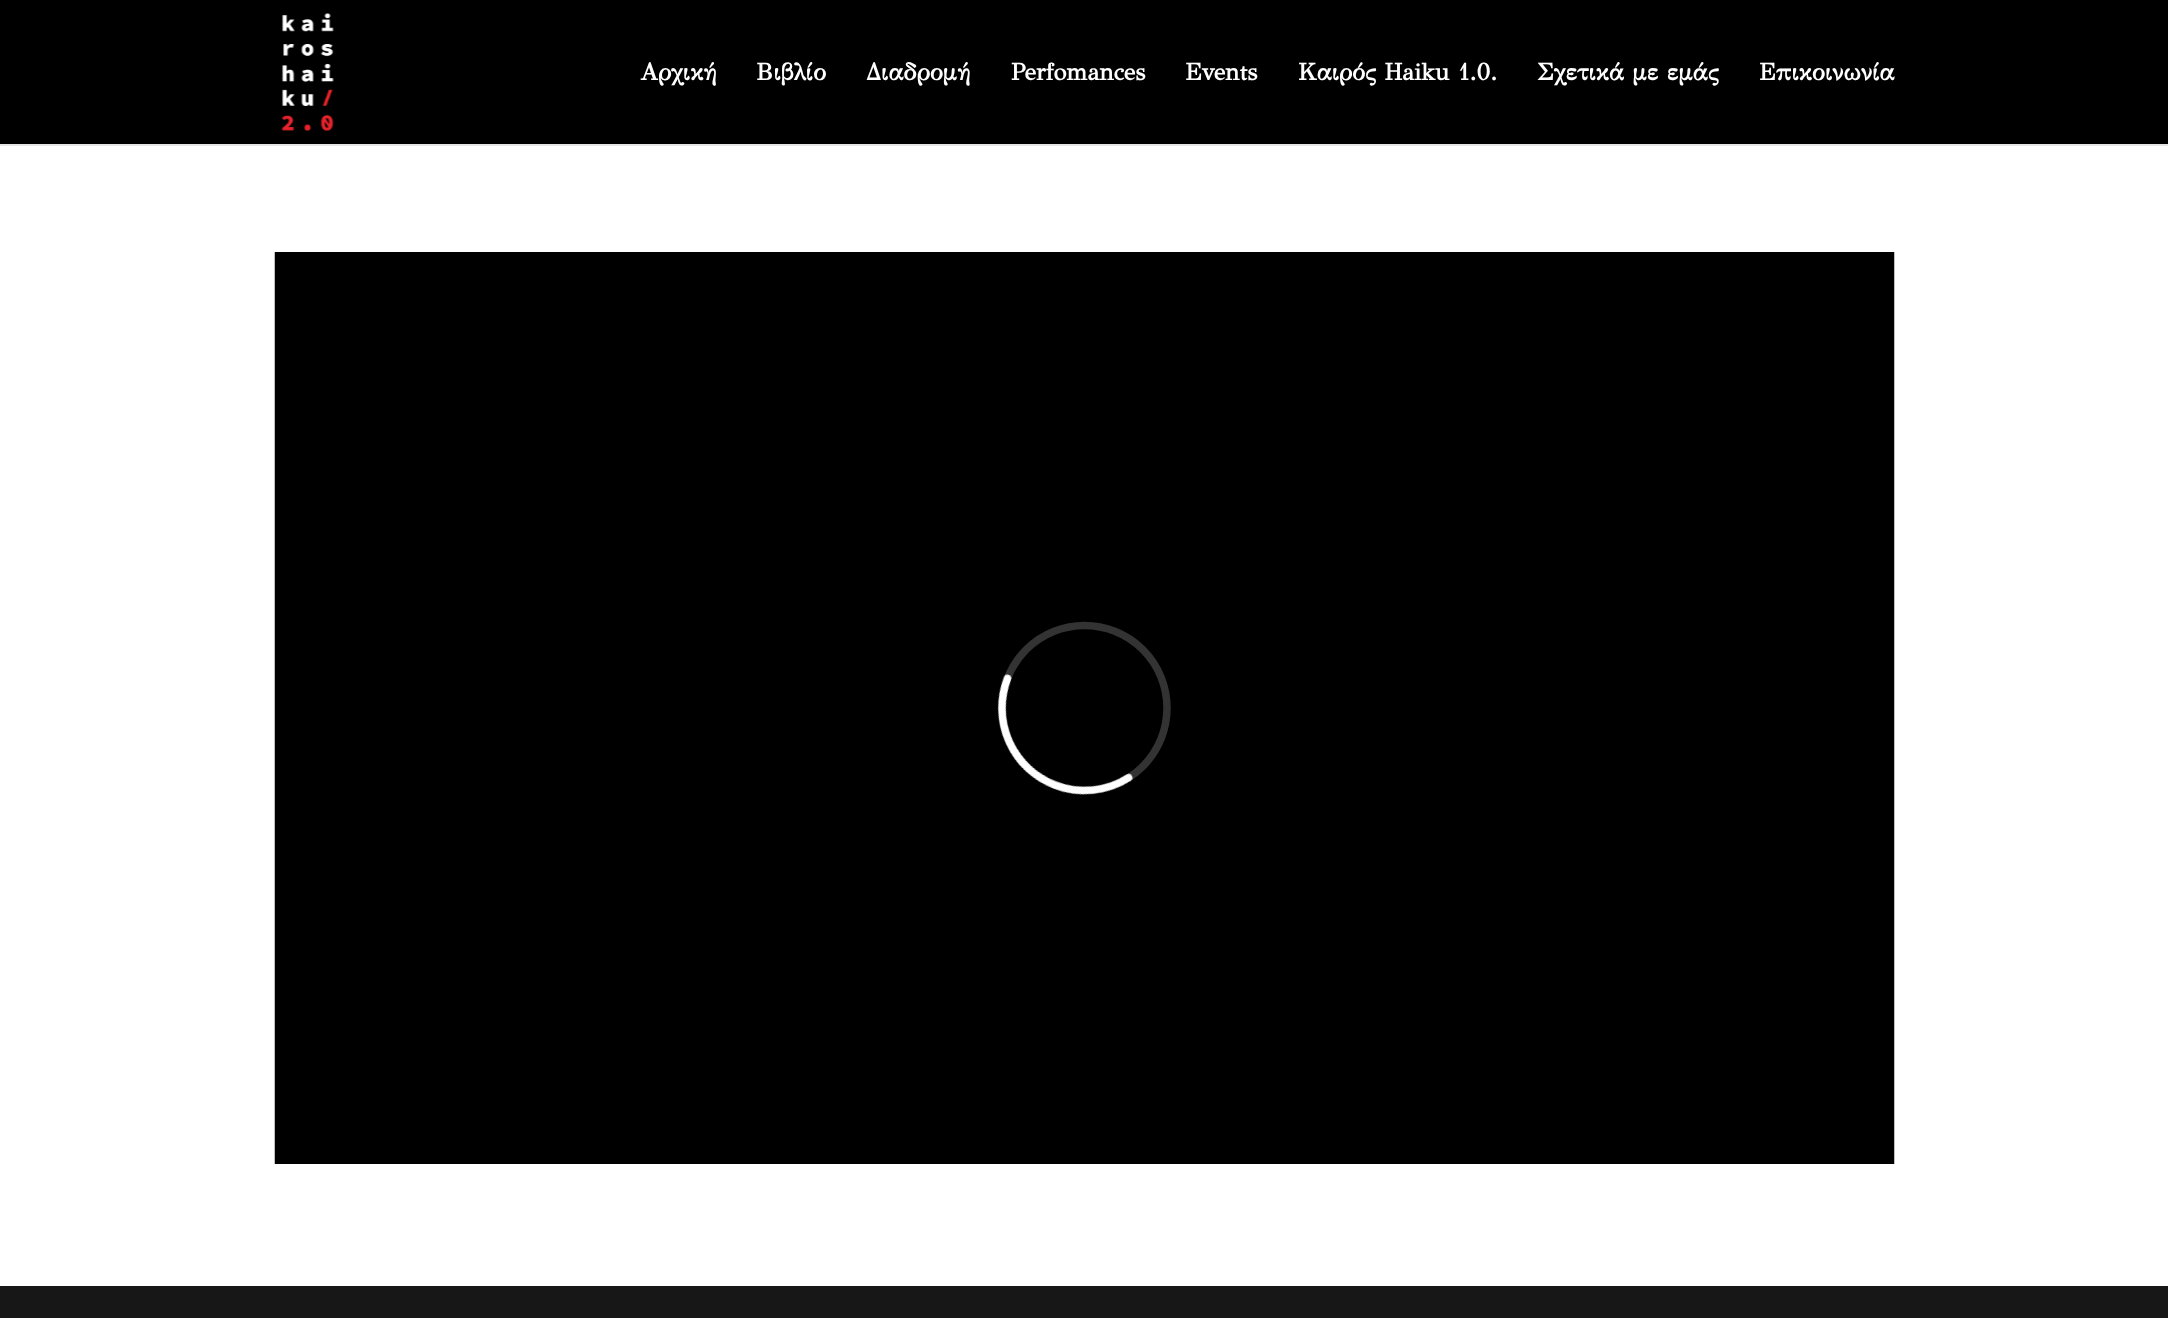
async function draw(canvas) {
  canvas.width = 2168
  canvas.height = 1318
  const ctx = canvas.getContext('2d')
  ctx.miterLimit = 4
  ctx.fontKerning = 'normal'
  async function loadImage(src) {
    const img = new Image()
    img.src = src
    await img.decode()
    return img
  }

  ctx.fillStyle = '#fff'
  ctx.fillRect(0, 0, 2168, 1318)
  ctx.fillStyle = '#e6e6e6'
  ctx.fillRect(0, 144, 2168, 2)
  ctx.fillStyle = '#000'
  ctx.fillRect(0, 0, 2168, 144)
  ctx.drawImage(await loadImage('image0.png'), 281, 13, 53, 118)
  ctx.font = 'bold 24px GFS Didot'
  ctx.fillStyle = '#fff'
  ctx.fillText('Αρχική', 640, 80)
  ctx.fillText('Βιβλίο', 756, 80)
  ctx.fillText('Διαδρομή', 866, 80)
  ctx.fillText('Perfomances', 1011, 80)
  ctx.fillText('Events', 1185, 80)
  ctx.fillText('Καιρός Haiku 1.0.', 1298, 80)
  ctx.fillText('Σχετικά με εμάς', 1537, 80)
  ctx.fillText('Επικοινωνία', 1759, 80)
  ctx.drawImage(await loadImage('image1.png'), 274, 252, 1621, 912)
  ctx.fillStyle = '#171717'
  ctx.fillRect(0, 1286, 2168, 32)
}

draw(document.querySelector('canvas'))
